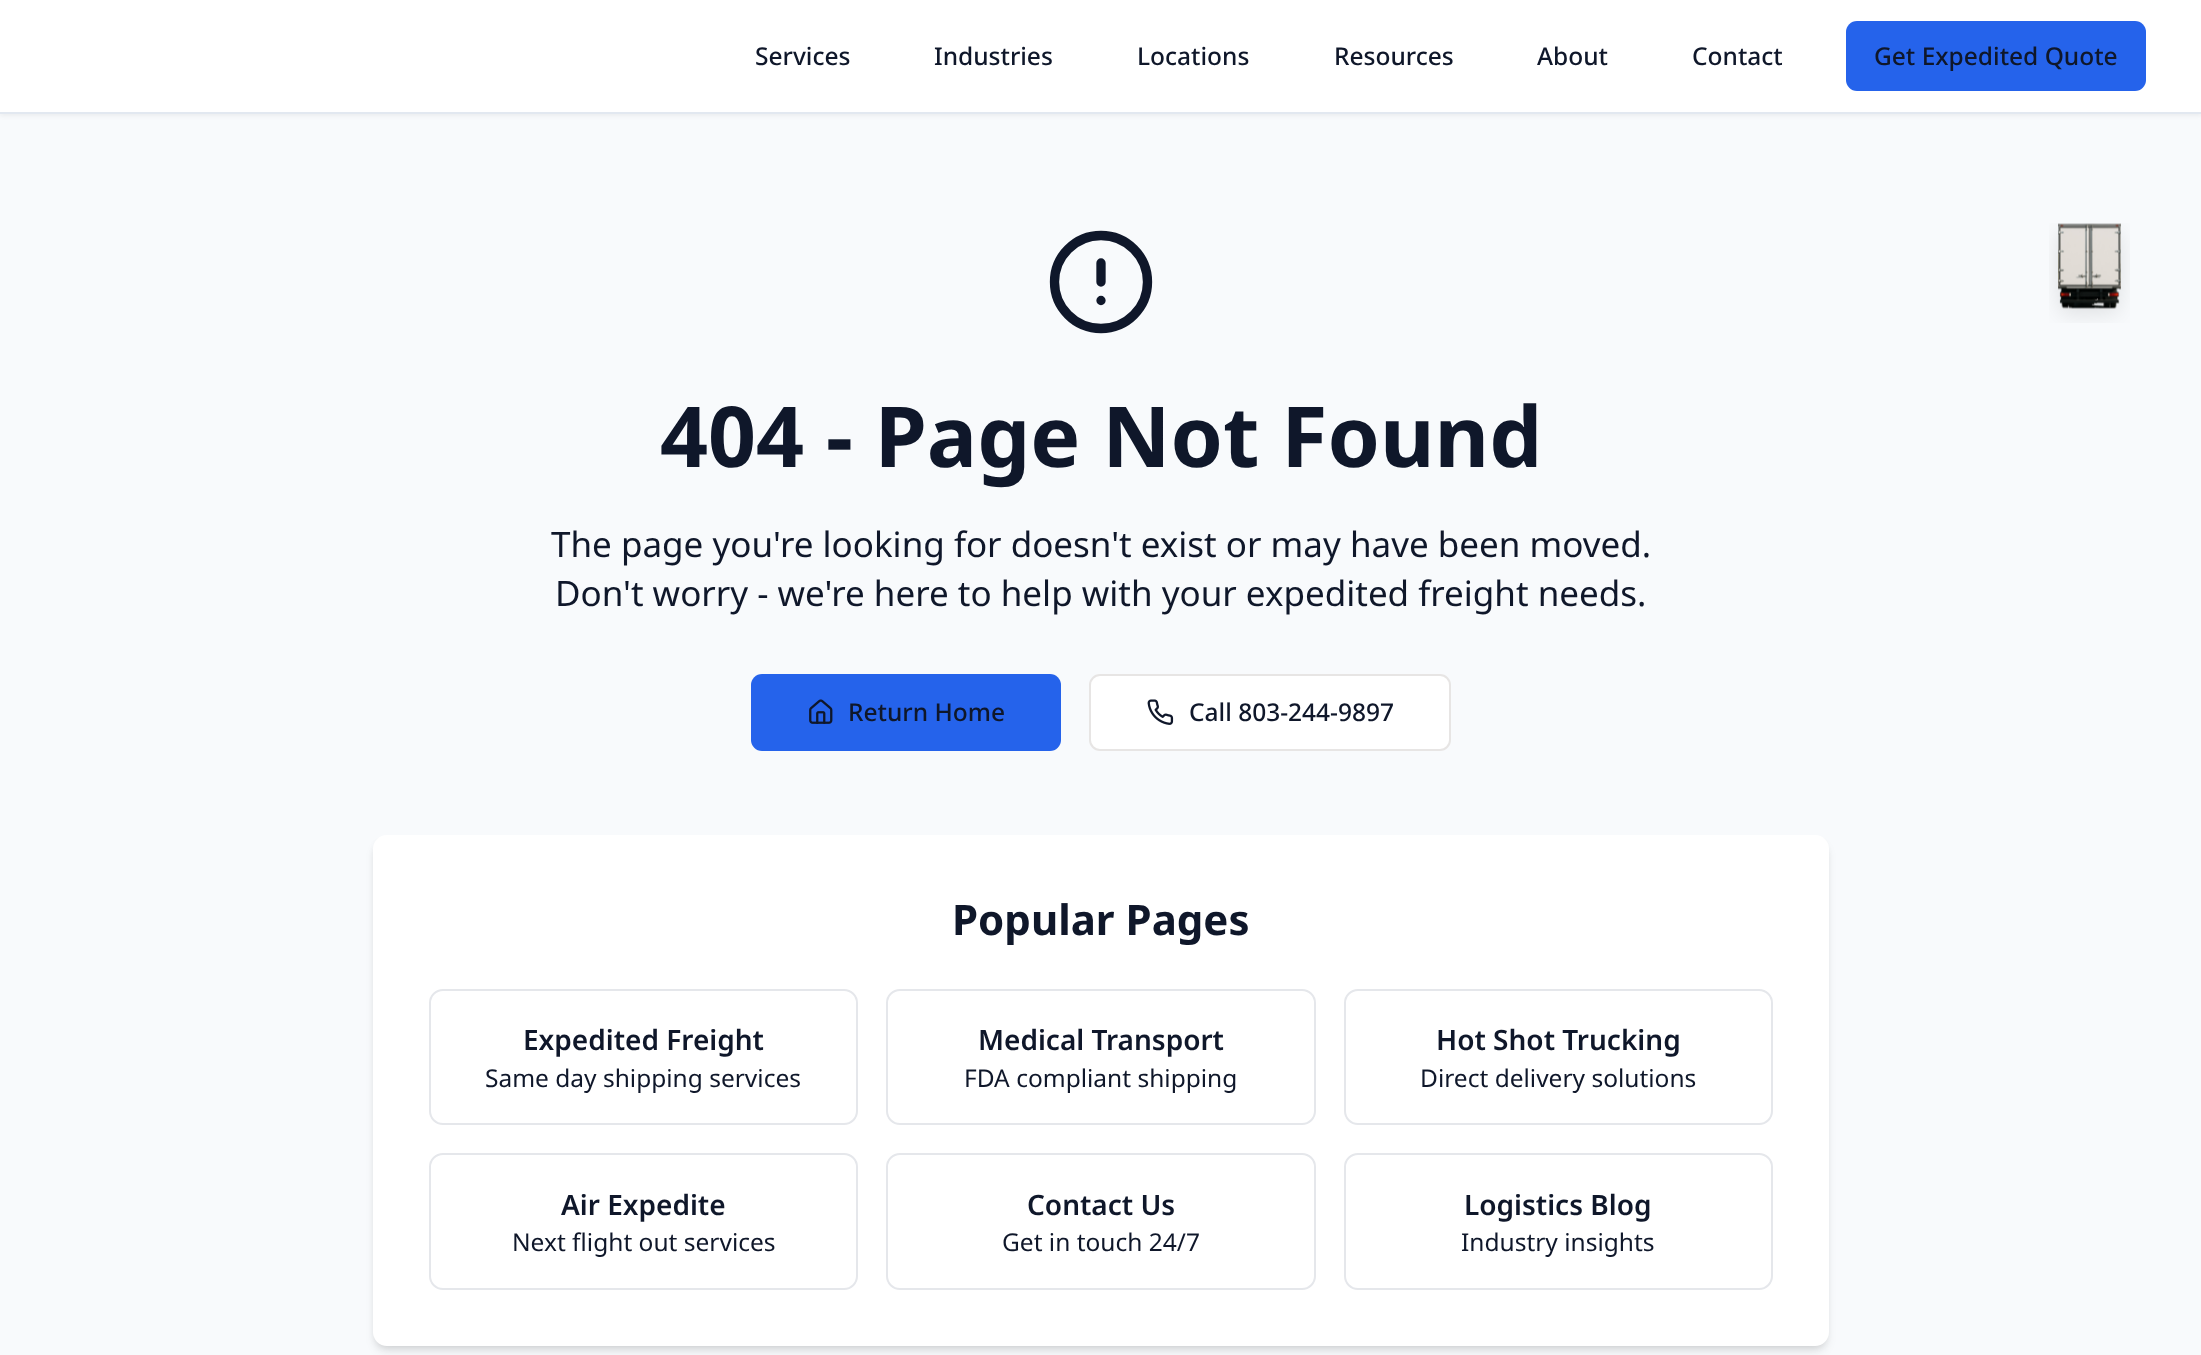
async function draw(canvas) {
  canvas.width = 2201
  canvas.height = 1355
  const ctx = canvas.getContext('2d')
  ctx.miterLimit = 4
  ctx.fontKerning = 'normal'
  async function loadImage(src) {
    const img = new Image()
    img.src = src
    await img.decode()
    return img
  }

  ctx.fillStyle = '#f8fafc'
  ctx.fillRect(0, 0, 2201, 1355)
  ctx.fillStyle = '#0000000d'
  ctx.filter = 'blur(2px)'
  ctx.beginPath()
  ctx.rect(0, 2, 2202, 114)
  ctx.fill()
  ctx.filter = 'none'
  ctx.fillStyle = '#fff'
  ctx.fillRect(0, 0, 2201, 112)
  ctx.fillStyle = '#e2e8f0'
  ctx.fillRect(0, 112, 2201, 2)
  ctx.font = '500 24.5px Noto Sans'
  ctx.fillStyle = '#0f172a'
  ctx.fillText('Services', 755, 65)
  ctx.fillText('Industries', 934, 65)
  ctx.fillText('Locations', 1137, 65)
  ctx.fillText('Resources', 1334, 65)
  ctx.fillText('About', 1537, 65)
  ctx.fillText('Contact', 1692, 65)
  ctx.fillStyle = '#2563eb'
  ctx.beginPath()
  ctx.roundRect(1846, 21, 300, 70, 11)
  ctx.fill()
  ctx.fillStyle = '#0f172a'
  ctx.fillText('Get Expedited Quote', 1874, 65)
  ctx.drawImage(await loadImage('image0.png'), 2049, 223, 81, 100)
  ctx.beginPath()
  ctx.arc(1101, 282, 46.5, 0, 2 * Math.PI)
  ctx.strokeStyle = '#0f172a'
  ctx.lineWidth = 9.3
  ctx.stroke()
  ctx.beginPath()
  ctx.moveTo(1101, 263)
  ctx.lineTo(1101, 282)
  ctx.moveTo(1101, 300.5)
  ctx.lineTo(1101, 300.5)
  ctx.lineCap = 'round'
  ctx.lineJoin = 'round'
  ctx.stroke()
  ctx.font = 'bold 84px Noto Sans'
  ctx.fillText('404 - Page Not Found', 660, 467)
  ctx.font = '35px Noto Sans'
  ctx.fillText('The page you\'re looking for doesn\'t exist or may have been moved.', 551, 557)
  ctx.fillText('Don\'t worry - we\'re here to help with your expedited freight needs.', 555, 606)
  ctx.fillStyle = '#2563eb'
  ctx.beginPath()
  ctx.roundRect(751, 674, 310, 77, 11)
  ctx.fill()
  ctx.drawImage(await loadImage('image1.png'), 809, 699, 24, 25)
  ctx.font = '500 24.5px Noto Sans'
  ctx.fillStyle = '#0f172a'
  ctx.fillText('Return Home', 848, 721)
  ctx.fillStyle = '#fff'
  ctx.beginPath()
  ctx.roundRect(1090, 675, 360, 75, 10)
  ctx.fill()
  ctx.strokeStyle = '#e7e5e4'
  ctx.lineWidth = 2
  ctx.lineJoin = 'miter'
  ctx.stroke()
  ctx.drawImage(await loadImage('image2.png'), 1147, 699, 27, 26)
  ctx.fillStyle = '#0f172a'
  ctx.fillText('Call 803-244-9897', 1189, 721)
  ctx.fillStyle = '#0000001a'
  ctx.filter = 'blur(3.5px)'
  ctx.beginPath()
  ctx.roundRect(376, 842, 1449, 504, 11)
  ctx.fill()
  ctx.filter = 'none'
  ctx.filter = 'blur(5px)'
  ctx.beginPath()
  ctx.roundRect(375, 844, 1452, 507, 12)
  ctx.fill()
  ctx.filter = 'none'
  ctx.fillStyle = '#fff'
  ctx.beginPath()
  ctx.roundRect(373, 835, 1456, 511, 14)
  ctx.fill()
  ctx.font = 'bold 42px Noto Sans'
  ctx.fillStyle = '#0f172a'
  ctx.fillText('Popular Pages', 952, 935)
  ctx.beginPath()
  ctx.roundRect(430, 990, 427, 134, 13)
  ctx.strokeStyle = '#e5e7eb'
  ctx.stroke()
  ctx.font = '600 28px Noto Sans'
  ctx.fillText('Expedited Freight', 523, 1050)
  ctx.font = '24.5px Noto Sans'
  ctx.fillText('Same day shipping services', 485, 1087)
  ctx.beginPath()
  ctx.roundRect(887, 990, 428, 134, 13)
  ctx.stroke()
  ctx.font = '600 28px Noto Sans'
  ctx.fillText('Medical Transport', 978, 1050)
  ctx.font = '24.5px Noto Sans'
  ctx.fillText('FDA compliant shipping', 964, 1087)
  ctx.beginPath()
  ctx.roundRect(1345, 990, 427, 134, 13)
  ctx.stroke()
  ctx.font = '600 28px Noto Sans'
  ctx.fillText('Hot Shot Trucking', 1436, 1050)
  ctx.font = '24.5px Noto Sans'
  ctx.fillText('Direct delivery solutions', 1420, 1087)
  ctx.beginPath()
  ctx.roundRect(430, 1154, 427, 135, 13)
  ctx.stroke()
  ctx.font = '600 28px Noto Sans'
  ctx.fillText('Air Expedite', 561, 1215)
  ctx.font = '24.5px Noto Sans'
  ctx.fillText('Next flight out services', 512, 1251)
  ctx.beginPath()
  ctx.roundRect(887, 1154, 428, 135, 13)
  ctx.stroke()
  ctx.font = '600 28px Noto Sans'
  ctx.fillText('Contact Us', 1027, 1215)
  ctx.font = '24.5px Noto Sans'
  ctx.fillText('Get in touch 24/7', 1002, 1251)
  ctx.beginPath()
  ctx.roundRect(1345, 1154, 427, 135, 13)
  ctx.stroke()
  ctx.font = '600 28px Noto Sans'
  ctx.fillText('Logistics Blog', 1464, 1215)
  ctx.font = '24.5px Noto Sans'
  ctx.fillText('Industry insights', 1461, 1251)
}

draw(document.querySelector('canvas'))
